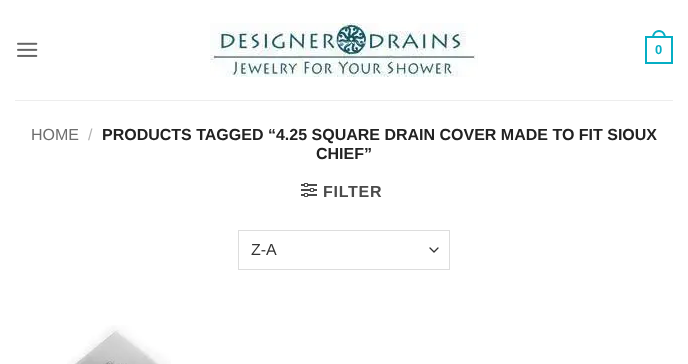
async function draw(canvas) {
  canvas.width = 688
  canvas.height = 364
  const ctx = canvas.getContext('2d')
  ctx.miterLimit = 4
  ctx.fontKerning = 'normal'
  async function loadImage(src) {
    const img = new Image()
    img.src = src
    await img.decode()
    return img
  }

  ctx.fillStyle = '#fff'
  ctx.fillRect(0, 0, 688, 364)
  ctx.drawImage(await loadImage('image0.png'), 17, 42, 21, 15)
  ctx.drawImage(await loadImage('image1.png'), 210, 23, 268, 54)
  ctx.strokeStyle = '#05aec4'
  ctx.lineWidth = 2
  ctx.strokeRect(646, 37, 26, 26)
  ctx.fillStyle = '#05aec4'
  ctx.beginPath()
  ctx.moveTo(659, 30)
  ctx.bezierCurveTo(663.5, 30, 666, 34, 666, 38)
  ctx.lineTo(652, 38)
  ctx.bezierCurveTo(652, 34, 654.5, 30, 659, 30)
  ctx.closePath()
  ctx.moveTo(659, 32)
  ctx.bezierCurveTo(662.5, 32, 664, 35, 664, 38)
  ctx.lineTo(654, 38)
  ctx.bezierCurveTo(654, 35, 655.5, 32, 659, 32)
  ctx.closePath()
  ctx.fill('evenodd')
  ctx.font = 'bold 13px Liberation Sans'
  ctx.fillText('0', 655, 54)
  ctx.fillStyle = '#ededed'
  ctx.fillRect(15, 100, 658, 1)
  ctx.font = '16px Liberation Sans'
  ctx.fillStyle = '#6e6e6e'
  ctx.fillText('HOME', 31, 140)
  ctx.fillStyle = '#b2b2b2'
  ctx.fillText('/', 88, 140)
  ctx.font = 'bold 16px Liberation Sans'
  ctx.fillStyle = '#222'
  ctx.fillText('PRODUCTS TAGGED “4.25 SQUARE DRAIN COVER MADE TO FIT SIOUX', 102, 140)
  ctx.fillText('CHIEF”', 316, 159)
  ctx.drawImage(await loadImage('image2.png'), 301, 183, 16, 14)
  ctx.letterSpacing = '0.75px'
  ctx.fillStyle = '#4a4a4a'
  ctx.fillText('FILTER', 323, 197)
  ctx.beginPath()
  ctx.moveTo(430, 248)
  ctx.lineTo(434, 252)
  ctx.lineTo(438, 248)
  ctx.strokeStyle = '#333'
  ctx.lineWidth = 1.3
  ctx.lineCap = 'round'
  ctx.lineJoin = 'round'
  ctx.stroke()
  ctx.strokeStyle = '#ddd'
  ctx.lineWidth = 1
  ctx.lineJoin = 'miter'
  ctx.strokeRect(238.5, 230.5, 211, 39)
  ctx.letterSpacing = '0px'
  ctx.font = '16px Liberation Sans'
  ctx.fillStyle = '#333'
  ctx.fillText('Z-A', 251, 255)
  ctx.drawImage(await loadImage('image3.png'), 67, 325, 104, 39)
}

draw(document.querySelector('canvas'))
